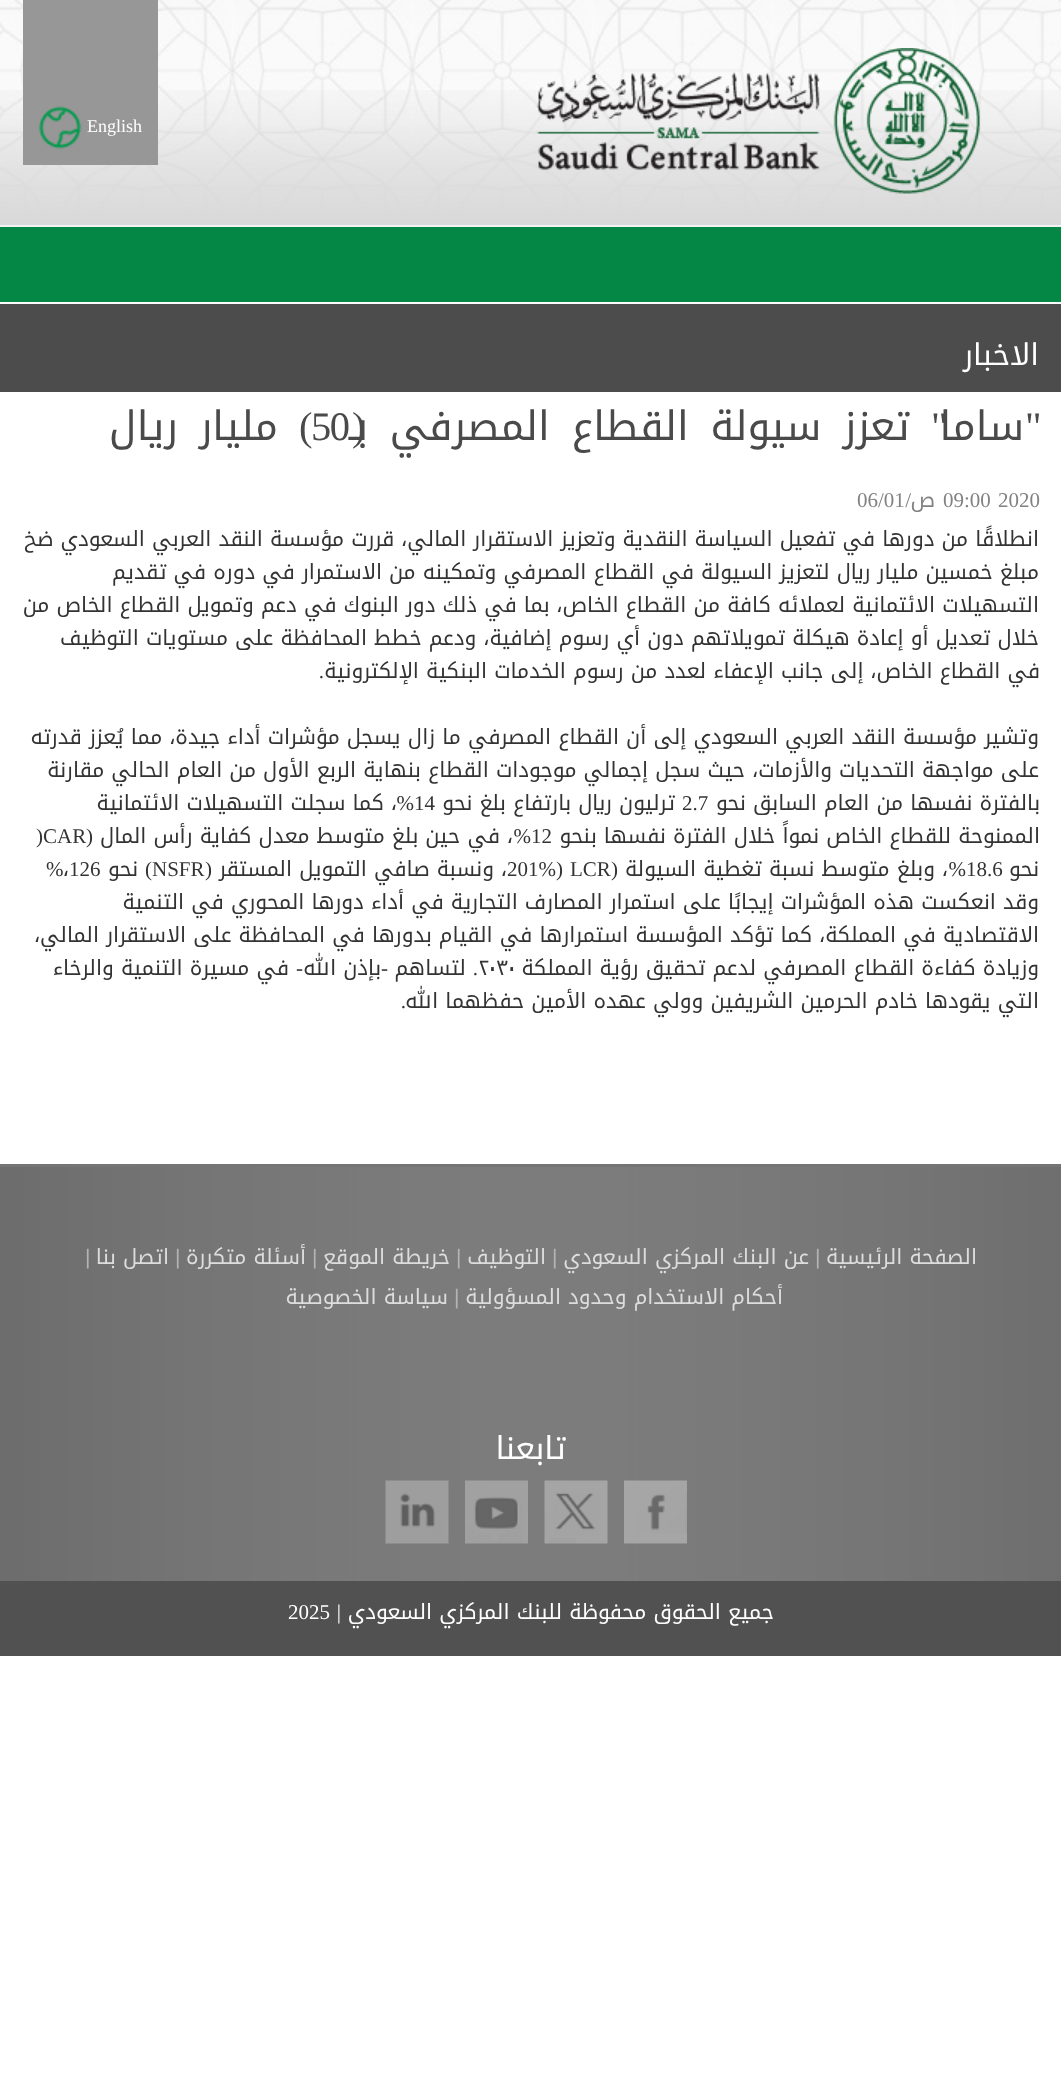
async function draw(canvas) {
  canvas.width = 1061
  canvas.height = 2081
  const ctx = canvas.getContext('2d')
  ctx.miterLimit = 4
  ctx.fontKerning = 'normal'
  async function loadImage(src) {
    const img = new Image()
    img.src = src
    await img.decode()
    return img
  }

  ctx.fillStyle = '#fff'
  ctx.fillRect(0, 0, 1061, 2081)
  ctx.drawImage(await loadImage('image0.png'), 0, 0, 1061, 221)
  ctx.fillStyle = '#f3f3f3'
  ctx.fillRect(0, 225, 1061, 2)
  ctx.drawImage(await loadImage('image1.png'), 0, 90, 1061, 135)
  ctx.drawImage(await loadImage('image2.png'), 536, 48, 444, 146)
  ctx.fillStyle = '#979797'
  ctx.fillRect(23, 0, 135, 165)
  ctx.font = '18px Liberation Serif'
  ctx.fillStyle = '#fff'
  ctx.fillText('English', 87, 132)
  ctx.drawImage(await loadImage('image3.png'), 38, 106, 44, 43)
  ctx.fillStyle = '#048745'
  ctx.fillRect(0, 227, 1061, 75)
  ctx.fillStyle = '#4c4c4c'
  ctx.fillRect(0, 304, 1061, 88)
  ctx.fillStyle = '#fafafa'
  ctx.fillRect(0, 302, 1061, 2)
  ctx.direction = 'rtl'
  ctx.font = '30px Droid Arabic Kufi'
  ctx.fillStyle = '#fff'
  ctx.fillText('الاخبار', 1039, 365)
  ctx.letterSpacing = '-1.5px'
  ctx.font = '40.5px Liberation Serif'
  ctx.fillStyle = '#4a4a4a'
  ctx.fillText('"', 1040, 440)
  ctx.font = '40.5px Droid Arabic Kufi'
  ctx.fillText('ساما', 1024, 440)
  ctx.font = '40.5px Liberation Serif'
  ctx.fillText('"', 946, 440)
  ctx.wordSpacing = '9.5px'
  ctx.font = '40.5px Droid Arabic Kufi'
  ctx.fillText('تعزز سيولة القطاع المصرفي بـ', 910, 440)
  ctx.wordSpacing = '0px'
  ctx.font = '40.5px Liberation Serif'
  ctx.fillText('(', 364, 440)
  ctx.direction = 'ltr'
  ctx.fillText('50', 311, 440)
  ctx.direction = 'rtl'
  ctx.fillText(')', 311, 440)
  ctx.wordSpacing = '9px'
  ctx.font = '40.5px Droid Arabic Kufi'
  ctx.fillText('مليار ريال', 278, 440)
  ctx.letterSpacing = '0px'
  ctx.wordSpacing = '0px'
  ctx.direction = 'ltr'
  ctx.font = '21px Liberation Serif'
  ctx.fillStyle = '#828282'
  ctx.fillText('2020', 998, 507)
  ctx.fillText('09:00', 943, 507)
  ctx.direction = 'rtl'
  ctx.font = '21px Droid Arabic Kufi'
  ctx.fillText('ص', 935, 507)
  ctx.font = '21px Liberation Serif'
  ctx.fillText('/', 911, 507)
  ctx.direction = 'ltr'
  ctx.fillText('06/01', 857, 507)
  ctx.direction = 'rtl'
  ctx.font = '21px Droid Arabic Kufi'
  ctx.fillStyle = '#333'
  ctx.fillText('انطلاقًا من دورها في تفعيل السياسة النقدية وتعزيز الاستقرار المالي، قررت مؤسسة النقد العربي السعودي ضخ', 1039, 546)
  ctx.fillText('مبلغ خمسين مليار ريال لتعزيز السيولة في القطاع المصرفي وتمكينه من الاستمرار في دوره في تقديم', 1039, 579)
  ctx.fillText('التسهيلات الائتمانية لعملائه كافة من القطاع الخاص، بما في ذلك دور البنوك في دعم وتمويل القطاع الخاص من', 1039, 612)
  ctx.fillText('خلال تعديل أو إعادة هيكلة تمويلاتهم دون أي رسوم إضافية، ودعم خطط المحافظة على مستويات التوظيف', 1039, 645)
  ctx.fillText('في القطاع الخاص، إلى جانب الإعفاء لعدد من رسوم الخدمات البنكية الإلكترونية', 1040, 678)
  ctx.font = '21px Liberation Serif'
  ctx.fillText('.', 324, 678)
  ctx.font = '21px Droid Arabic Kufi'
  ctx.fillText('وتشير مؤسسة النقد العربي السعودي إلى أن القطاع المصرفي ما زال يسجل مؤشرات أداء جيدة، مما يُعزز قدرته', 1039, 744)
  ctx.fillText('على مواجهة التحديات والأزمات، حيث سجل إجمالي موجودات القطاع بنهاية الربع الأول من العام الحالي مقارنة', 1039, 777)
  ctx.fillText('بالفترة نفسها من العام السابق نحو', 1040, 810)
  ctx.direction = 'ltr'
  ctx.font = '21px Liberation Serif'
  ctx.fillText('2.7', 682, 810)
  ctx.direction = 'rtl'
  ctx.font = '21px Droid Arabic Kufi'
  ctx.fillText('ترليون ريال بارتفاع بلغ نحو', 675, 810)
  ctx.direction = 'ltr'
  ctx.font = '21px Liberation Serif'
  ctx.fillText('14', 414, 810)
  ctx.direction = 'rtl'
  ctx.fillText('%', 414, 810)
  ctx.font = '21px Droid Arabic Kufi'
  ctx.fillText('، كما سجلت التسهيلات الائتمانية', 397, 810)
  ctx.fillText('الممنوحة للقطاع الخاص نمواً خلال الفترة نفسها بنحو', 1040, 843)
  ctx.direction = 'ltr'
  ctx.font = '21px Liberation Serif'
  ctx.fillText('12', 531, 843)
  ctx.direction = 'rtl'
  ctx.fillText('%', 531, 843)
  ctx.font = '21px Droid Arabic Kufi'
  ctx.fillText('، في حين بلغ متوسط معدل كفاية رأس المال', 513, 843)
  ctx.font = '21px Liberation Serif'
  ctx.fillText('(', 93, 843)
  ctx.direction = 'ltr'
  ctx.fillText(')CAR', 36, 843)
  ctx.direction = 'rtl'
  ctx.font = '21px Droid Arabic Kufi'
  ctx.fillText('نحو', 1039, 876)
  ctx.direction = 'ltr'
  ctx.font = '21px Liberation Serif'
  ctx.fillText('18.6', 966, 876)
  ctx.direction = 'rtl'
  ctx.fillText('%', 966, 876)
  ctx.font = '21px Droid Arabic Kufi'
  ctx.fillText('، وبلغ متوسط نسبة تغطية السيولة', 948, 876)
  ctx.font = '21px Liberation Serif'
  ctx.fillText('(', 618, 876)
  ctx.direction = 'ltr'
  ctx.fillText('LCR', 570, 876)
  ctx.fillText('201%)', 507, 876)
  ctx.direction = 'rtl'
  ctx.font = '21px Droid Arabic Kufi'
  ctx.fillText('، ونسبة صافي التمويل المستقر', 507, 876)
  ctx.font = '21px Liberation Serif'
  ctx.fillText('(', 212, 876)
  ctx.direction = 'ltr'
  ctx.fillText('NSFR', 152, 876)
  ctx.direction = 'rtl'
  ctx.fillText(')', 152, 876)
  ctx.font = '21px Droid Arabic Kufi'
  ctx.fillText('نحو', 138, 876)
  ctx.direction = 'ltr'
  ctx.font = '21px Liberation Serif'
  ctx.fillText('126', 69, 876)
  ctx.font = '21px Droid Arabic Kufi'
  ctx.fillText('،', 63, 876)
  ctx.font = '21px Liberation Serif'
  ctx.fillText('%', 46, 876)
  ctx.direction = 'rtl'
  ctx.font = '21px Droid Arabic Kufi'
  ctx.fillText('وقد انعكست هذه المؤشرات إيجابًا على استمرار المصارف التجارية في أداء دورها المحوري في التنمية', 1039, 909)
  ctx.fillText('الاقتصادية في المملكة، كما تؤكد المؤسسة استمرارها في القيام بدورها في المحافظة على الاستقرار المالي،', 1039, 942)
  ctx.fillText('وزيادة كفاءة القطاع المصرفي لدعم تحقيق رؤية المملكة', 1039, 975)
  ctx.direction = 'ltr'
  ctx.fillText('٢٠٣٠', 479, 975)
  ctx.direction = 'rtl'
  ctx.fillText('لتساهم', 466, 975)
  ctx.font = '21px Liberation Serif'
  ctx.fillText('-', 388, 975)
  ctx.font = '21px Droid Arabic Kufi'
  ctx.fillText('بإذن الله', 381, 975)
  ctx.font = '21px Liberation Serif'
  ctx.fillText('-', 303, 975)
  ctx.font = '21px Droid Arabic Kufi'
  ctx.fillText('في مسيرة التنمية والرخاء', 289, 975)
  ctx.font = '21px Liberation Serif'
  ctx.fillText('.', 478, 975)
  ctx.font = '21px Droid Arabic Kufi'
  ctx.fillText('التي يقودها خادم الحرمين الشريفين وولي عهده الأمين حفظهما الله', 1039, 1008)
  ctx.font = '21px Liberation Serif'
  ctx.fillText('.', 406, 1008)
  ctx.drawImage(await loadImage('image4.png'), 0, 1167, 1061, 414)
  ctx.fillStyle = '#757575'
  ctx.fillRect(0, 1164, 1061, 3)
  ctx.font = '21px Droid Arabic Kufi'
  ctx.fillStyle = '#ddd'
  ctx.fillText('الصفحة الرئيسية', 977, 1264)
  ctx.direction = 'ltr'
  ctx.font = '21px Liberation Sans'
  ctx.fillStyle = '#b4b4b4'
  ctx.fillText('|', 815, 1264)
  ctx.direction = 'rtl'
  ctx.font = '21px Droid Arabic Kufi'
  ctx.fillStyle = '#ddd'
  ctx.fillText('عن البنك المركزي السعودي', 809, 1264)
  ctx.direction = 'ltr'
  ctx.font = '21px Liberation Sans'
  ctx.fillStyle = '#b4b4b4'
  ctx.fillText('|', 552, 1264)
  ctx.direction = 'rtl'
  ctx.font = '21px Droid Arabic Kufi'
  ctx.fillStyle = '#ddd'
  ctx.fillText('التوظيف', 546, 1264)
  ctx.direction = 'ltr'
  ctx.font = '21px Liberation Sans'
  ctx.fillStyle = '#b4b4b4'
  ctx.fillText('|', 456, 1264)
  ctx.direction = 'rtl'
  ctx.font = '21px Droid Arabic Kufi'
  ctx.fillStyle = '#ddd'
  ctx.fillText('خريطة الموقع', 450, 1264)
  ctx.direction = 'ltr'
  ctx.font = '21px Liberation Sans'
  ctx.fillStyle = '#b4b4b4'
  ctx.fillText('|', 312, 1264)
  ctx.direction = 'rtl'
  ctx.font = '21px Droid Arabic Kufi'
  ctx.fillStyle = '#ddd'
  ctx.fillText('أسئلة متكررة', 306, 1264)
  ctx.direction = 'ltr'
  ctx.font = '21px Liberation Sans'
  ctx.fillStyle = '#b4b4b4'
  ctx.fillText('|', 175, 1264)
  ctx.direction = 'rtl'
  ctx.font = '21px Droid Arabic Kufi'
  ctx.fillStyle = '#ddd'
  ctx.fillText('اتصل بنا', 169, 1264)
  ctx.direction = 'ltr'
  ctx.font = '21px Liberation Sans'
  ctx.fillStyle = '#b4b4b4'
  ctx.fillText('|', 85, 1264)
  ctx.direction = 'rtl'
  ctx.font = '21px Droid Arabic Kufi'
  ctx.fillStyle = '#ddd'
  ctx.fillText('أحكام الاستخدام وحدود المسؤولية', 783, 1304)
  ctx.direction = 'ltr'
  ctx.font = '21px Liberation Sans'
  ctx.fillStyle = '#b4b4b4'
  ctx.fillText('|', 454, 1304)
  ctx.direction = 'rtl'
  ctx.font = '21px Droid Arabic Kufi'
  ctx.fillStyle = '#ddd'
  ctx.fillText('سياسة الخصوصية', 448, 1304)
  ctx.font = '31.5px Droid Arabic Kufi'
  ctx.fillStyle = '#fff'
  ctx.fillText('تابعنا', 566, 1459)
  ctx.drawImage(await loadImage('image5.png'), 624, 1480, 63, 64)
  ctx.drawImage(await loadImage('image6.png'), 544, 1480, 64, 64)
  ctx.drawImage(await loadImage('image7.png'), 465, 1480, 63, 64)
  ctx.drawImage(await loadImage('image8.png'), 385, 1480, 64, 64)
  ctx.fillStyle = '#515151'
  ctx.fillRect(0, 1581, 1061, 75)
  ctx.font = '21px Droid Arabic Kufi'
  ctx.fillStyle = '#fff'
  ctx.fillText('جميع الحقوق محفوظة للبنك المركزي السعودي', 774, 1619)
  ctx.font = '21px Liberation Serif'
  ctx.fillText('|', 341, 1619)
  ctx.direction = 'ltr'
  ctx.fillText('2025', 288, 1619)
}

draw(document.querySelector('canvas'))
